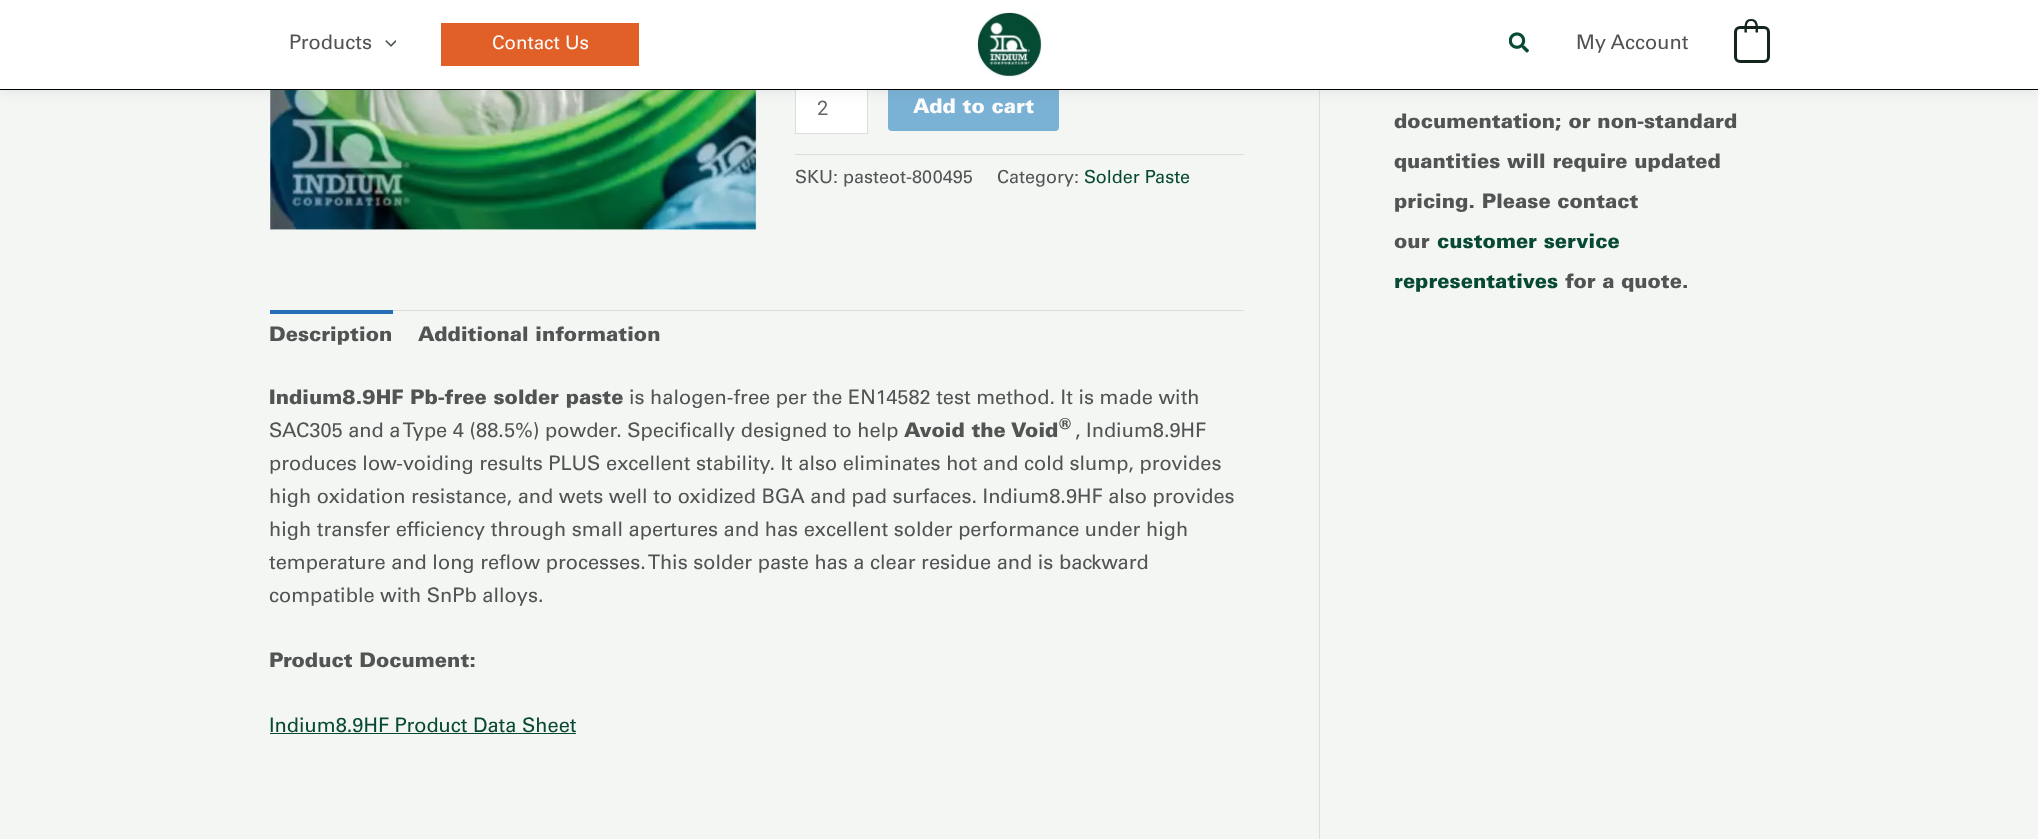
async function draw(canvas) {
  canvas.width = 2038
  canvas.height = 839
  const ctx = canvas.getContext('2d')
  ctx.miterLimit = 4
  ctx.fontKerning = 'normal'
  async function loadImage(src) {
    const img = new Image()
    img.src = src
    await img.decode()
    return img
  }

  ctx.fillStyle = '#f4f6f4'
  ctx.fillRect(0, 0, 2038, 839)
  ctx.fillStyle = '#ddd'
  ctx.fillRect(1319, 90, 1, 749)
  ctx.drawImage(await loadImage('image3.png'), 270, 90, 487, 140)
  ctx.fillStyle = '#fff'
  ctx.fillRect(796, 90, 71, 43)
  ctx.strokeStyle = '#ddd'
  ctx.strokeRect(795.5, 86.5, 72, 47)
  ctx.fillStyle = '#7ab2d5'
  ctx.beginPath()
  ctx.roundRect(888, 86, 171, 45, 4)
  ctx.fill()
  ctx.fillStyle = '#24324212'
  ctx.filter = 'blur(6px)'
  ctx.beginPath()
  ctx.rect(0, 3, 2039, 90)
  ctx.fill()
  ctx.filter = 'none'
  ctx.fillStyle = '#fff'
  ctx.fillRect(0, 0, 2038, 89)
  ctx.fillStyle = '#000'
  ctx.fillRect(0, 89, 2038, 1)
  ctx.font = '20px Univers'
  ctx.fillStyle = '#525353'
  ctx.fillText('Products', 289, 49)
  ctx.drawImage(await loadImage('image0.png'), 385, 40, 11, 7)
  ctx.fillStyle = '#e16027'
  ctx.fillRect(441, 23, 198, 43)
  ctx.font = '18.75px Univers'
  ctx.fillStyle = '#fafbfa'
  ctx.fillText('Contact Us', 492, 49)
  ctx.drawImage(await loadImage('image1.png'), 977, 12, 65, 65)
  ctx.drawImage(await loadImage('image2.png'), 1509, 32, 20, 21)
  ctx.font = '20px Univers'
  ctx.fillStyle = '#525353'
  ctx.fillText('My Account', 1576, 49)
  ctx.beginPath()
  ctx.roundRect(1735.5, 27.5, 33, 34, 4.5)
  ctx.strokeStyle = '#14261c'
  ctx.lineWidth = 3
  ctx.stroke()
  ctx.fillStyle = '#14261c'
  ctx.beginPath()
  ctx.moveTo(1751, 19)
  ctx.bezierCurveTo(1759, 19, 1758, 27, 1758, 32.5)
  ctx.lineTo(1744.5, 32.5)
  ctx.bezierCurveTo(1744.5, 27, 1743.5, 19, 1751, 19)
  ctx.closePath()
  ctx.moveTo(1751, 21)
  ctx.bezierCurveTo(1757, 21, 1755.5, 29, 1755.5, 32.5)
  ctx.lineTo(1747, 32.5)
  ctx.bezierCurveTo(1747, 29, 1745.5, 21, 1751, 21)
  ctx.closePath()
  ctx.fill('evenodd')
  ctx.font = '20px Roboto'
  ctx.fillStyle = '#666'
  ctx.fillText('2', 817, 115)
  ctx.font = '900 20px Univers'
  ctx.fillStyle = '#fafbfa'
  ctx.fillText('Add to cart', 913, 113)
  ctx.fillStyle = '#ddd'
  ctx.fillRect(795, 154, 449, 1)
  ctx.font = '18px Univers'
  ctx.fillStyle = '#525353'
  ctx.fillText('SKU: pasteot-800495', 795, 183)
  ctx.fillText('Category:', 997, 183)
  ctx.fillStyle = '#074932'
  ctx.fillText('Solder Paste', 1084, 183)
  ctx.fillStyle = '#ddd'
  ctx.fillRect(393, 310, 851, 1)
  ctx.fillStyle = '#256db6'
  ctx.fillRect(270, 310, 123, 4)
  ctx.font = '900 20px Univers'
  ctx.fillStyle = '#525353'
  ctx.fillText('Description', 269, 341)
  ctx.fillText('Additional information', 418, 341)
  ctx.fillText('Indium8.9HF Pb-free solder paste', 269, 404)
  ctx.font = '20px Univers'
  ctx.fillText('is halogen-free per the EN14582 test method. It is made with', 629, 404)
  ctx.fillText('SAC305 and a Type 4 (88.5%) powder. Specifically designed to help', 269, 437)
  ctx.font = '900 20px Univers'
  ctx.fillText('Avoid the Void', 904, 437)
  ctx.font = '900 15px Univers'
  ctx.fillText('®', 1059, 429)
  ctx.font = '20px Univers'
  ctx.fillText(', Indium8.9HF', 1075, 437)
  ctx.fillText('produces low-voiding results PLUS excellent stability. It also eliminates hot and cold slump, provides', 269, 470)
  ctx.fillText('high oxidation resistance, and wets well to oxidized BGA and pad surfaces. Indium8.9HF also provides', 269, 503)
  ctx.fillText('high transfer efficiency through small apertures and has excellent solder performance under high', 269, 536)
  ctx.fillText('temperature and long reflow processes. This solder paste has a clear residue and is backward', 269, 569)
  ctx.fillText('compatible with SnPb alloys.', 269, 602)
  ctx.font = '900 20px Univers'
  ctx.fillText('Product Document:', 269, 667)
  ctx.font = '20px Univers'
  ctx.fillStyle = '#074932'
  ctx.fillText('Indium8.9HF Product Data Sheet', 269, 732)
  ctx.fillRect(270, 733, 306, 1)
  ctx.font = '900 20px Univers'
  ctx.fillStyle = '#525353'
  ctx.fillText('documentation; or non-standard', 1394, 128)
  ctx.fillText('quantities will require updated', 1394, 168)
  ctx.fillText('pricing. Please contact', 1394, 208)
  ctx.fillText('our', 1394, 248)
  ctx.fillStyle = '#074932'
  ctx.fillText('customer service', 1437, 248)
  ctx.fillText('representatives', 1394, 288)
  ctx.fillStyle = '#525353'
  ctx.fillText('for a quote.', 1565, 288)
}

draw(document.querySelector('canvas'))
